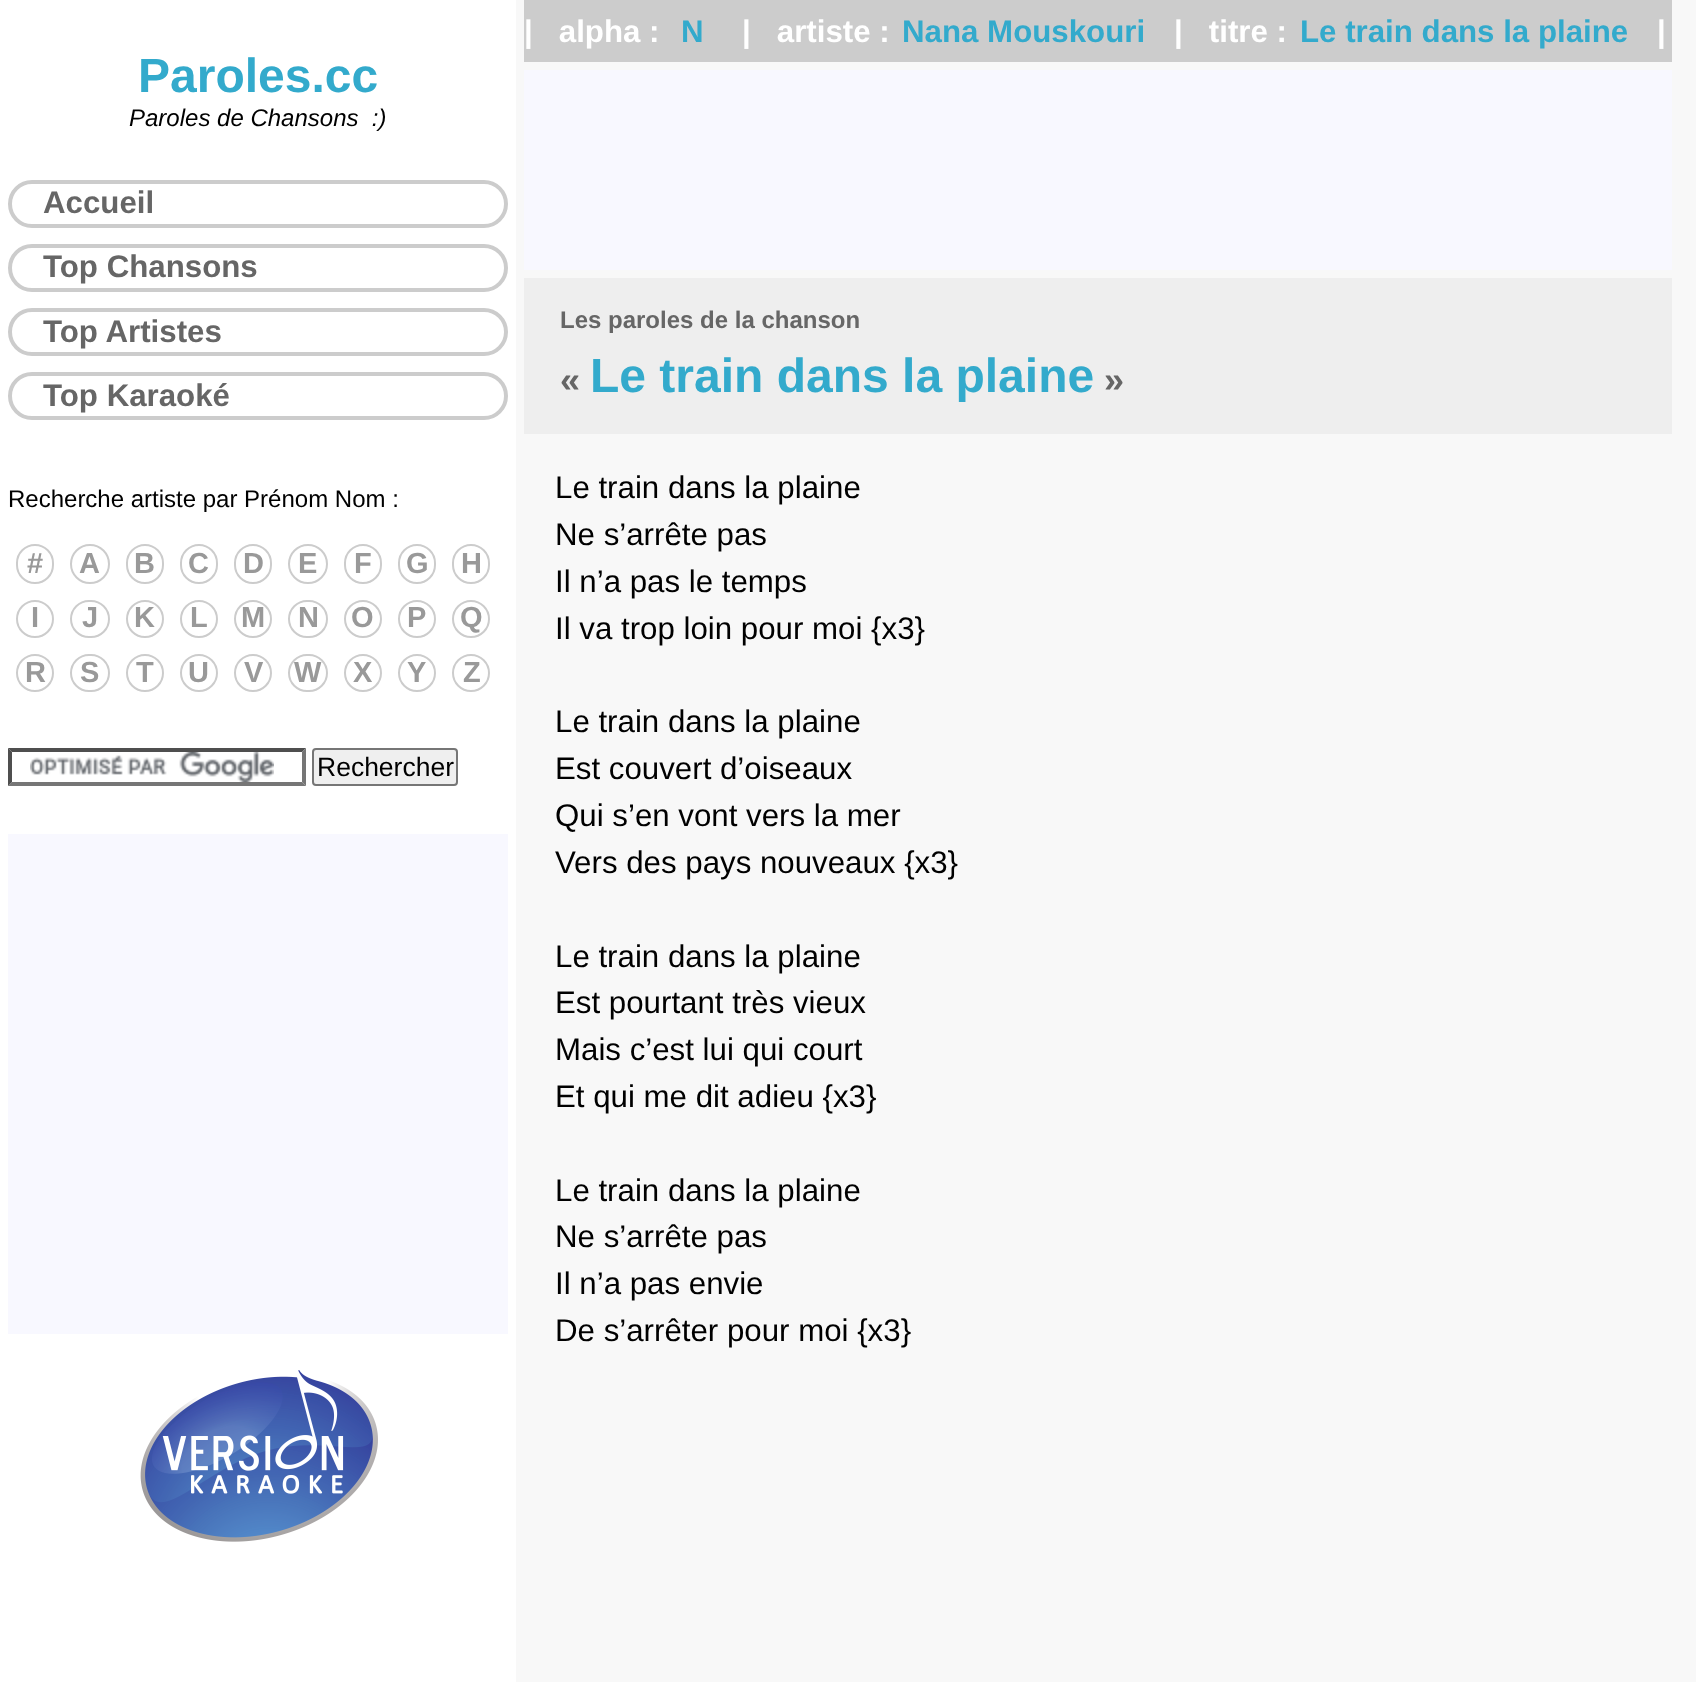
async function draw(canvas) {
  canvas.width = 1696
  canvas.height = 1682
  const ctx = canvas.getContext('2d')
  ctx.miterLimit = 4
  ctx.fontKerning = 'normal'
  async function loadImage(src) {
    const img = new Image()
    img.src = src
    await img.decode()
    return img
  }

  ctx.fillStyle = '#f8f8f8'
  ctx.fillRect(0, 0, 1696, 1682)
  ctx.fillStyle = '#fff'
  ctx.fillRect(0, 0, 516, 1682)
  ctx.font = 'bold 48px Liberation Sans'
  ctx.fillStyle = '#3ac'
  ctx.fillText('Paroles.cc', 138, 92)
  ctx.font = 'italic 24px Liberation Sans'
  ctx.fillStyle = '#000'
  ctx.fillText('Paroles de Chansons  :)', 129, 126)
  ctx.beginPath()
  ctx.roundRect(10, 182, 496, 44, 22)
  ctx.strokeStyle = '#ccc'
  ctx.lineWidth = 4
  ctx.stroke()
  ctx.font = 'bold 31.25px Liberation Sans'
  ctx.fillStyle = '#666'
  ctx.fillText('Accueil', 43, 213)
  ctx.beginPath()
  ctx.roundRect(10, 246, 496, 44, 22)
  ctx.stroke()
  ctx.fillText('Top Chansons', 43, 277)
  ctx.beginPath()
  ctx.roundRect(10, 310, 496, 44, 22)
  ctx.stroke()
  ctx.fillText('Top Artistes', 43, 342)
  ctx.beginPath()
  ctx.roundRect(10, 374, 496, 44, 22)
  ctx.stroke()
  ctx.fillText('Top Karaoké', 43, 406)
  ctx.font = '24px Liberation Sans'
  ctx.fillStyle = '#000'
  ctx.fillText('Recherche artiste par Prénom Nom :', 8, 507)
  ctx.beginPath()
  ctx.roundRect(17, 545, 36, 38, 18)
  ctx.lineWidth = 2
  ctx.stroke()
  ctx.font = 'bold 29px Liberation Sans'
  ctx.fillStyle = '#999'
  ctx.fillText('#', 27, 573)
  ctx.beginPath()
  ctx.arc(90, 564, 19, 0, 2 * Math.PI)
  ctx.stroke()
  ctx.fillText('A', 79, 573)
  ctx.beginPath()
  ctx.roundRect(127, 545, 36, 38, 18)
  ctx.stroke()
  ctx.fillText('B', 134, 573)
  ctx.beginPath()
  ctx.roundRect(181, 545, 36, 38, 18)
  ctx.stroke()
  ctx.fillText('C', 188, 573)
  ctx.beginPath()
  ctx.roundRect(235, 545, 36, 38, 18)
  ctx.stroke()
  ctx.fillText('D', 243, 573)
  ctx.beginPath()
  ctx.arc(308, 564, 19, 0, 2 * Math.PI)
  ctx.stroke()
  ctx.fillText('E', 298, 573)
  ctx.beginPath()
  ctx.roundRect(345, 545, 36, 38, 18)
  ctx.stroke()
  ctx.fillText('F', 354, 573)
  ctx.beginPath()
  ctx.roundRect(399, 545, 36, 38, 18)
  ctx.stroke()
  ctx.fillText('G', 406, 573)
  ctx.beginPath()
  ctx.roundRect(453, 545, 36, 38, 18)
  ctx.stroke()
  ctx.fillText('H', 461, 573)
  ctx.beginPath()
  ctx.arc(35, 619, 18, 0, 2 * Math.PI)
  ctx.stroke()
  ctx.fillText('I', 31, 627)
  ctx.beginPath()
  ctx.roundRect(71, 601, 38, 36, 18)
  ctx.stroke()
  ctx.fillText('J', 82, 627)
  ctx.beginPath()
  ctx.arc(145, 619, 18, 0, 2 * Math.PI)
  ctx.stroke()
  ctx.fillText('K', 134, 627)
  ctx.beginPath()
  ctx.arc(199, 619, 18, 0, 2 * Math.PI)
  ctx.stroke()
  ctx.fillText('L', 190, 627)
  ctx.beginPath()
  ctx.arc(253, 619, 18, 0, 2 * Math.PI)
  ctx.stroke()
  ctx.fillText('M', 241, 627)
  ctx.beginPath()
  ctx.roundRect(289, 601, 38, 36, 18)
  ctx.stroke()
  ctx.fillText('N', 298, 627)
  ctx.beginPath()
  ctx.arc(363, 619, 18, 0, 2 * Math.PI)
  ctx.stroke()
  ctx.fillText('O', 351, 627)
  ctx.beginPath()
  ctx.arc(417, 619, 18, 0, 2 * Math.PI)
  ctx.stroke()
  ctx.fillText('P', 407, 627)
  ctx.beginPath()
  ctx.arc(471, 619, 18, 0, 2 * Math.PI)
  ctx.stroke()
  ctx.fillText('Q', 460, 627)
  ctx.beginPath()
  ctx.arc(35, 673, 18, 0, 2 * Math.PI)
  ctx.stroke()
  ctx.fillText('R', 25, 682)
  ctx.beginPath()
  ctx.roundRect(71, 655, 38, 36, 18)
  ctx.stroke()
  ctx.fillText('S', 80, 682)
  ctx.beginPath()
  ctx.arc(145, 673, 18, 0, 2 * Math.PI)
  ctx.stroke()
  ctx.fillText('T', 136, 682)
  ctx.beginPath()
  ctx.arc(199, 673, 18, 0, 2 * Math.PI)
  ctx.stroke()
  ctx.fillText('U', 188, 682)
  ctx.beginPath()
  ctx.arc(253, 673, 18, 0, 2 * Math.PI)
  ctx.stroke()
  ctx.fillText('V', 244, 682)
  ctx.beginPath()
  ctx.roundRect(289, 655, 38, 36, 18)
  ctx.stroke()
  ctx.fillText('W', 294, 682)
  ctx.beginPath()
  ctx.arc(363, 673, 18, 0, 2 * Math.PI)
  ctx.stroke()
  ctx.fillText('X', 353, 682)
  ctx.beginPath()
  ctx.arc(417, 673, 18, 0, 2 * Math.PI)
  ctx.stroke()
  ctx.fillText('Y', 407, 682)
  ctx.beginPath()
  ctx.arc(471, 673, 18, 0, 2 * Math.PI)
  ctx.stroke()
  ctx.fillText('Z', 463, 682)
  ctx.drawImage(await loadImage('image0.png'), 30, 752, 244, 30)
  ctx.fillStyle = '#4f4f4f'
  ctx.beginPath()
  ctx.moveTo(8, 748)
  ctx.lineTo(306, 748)
  ctx.lineTo(302, 752)
  ctx.lineTo(12, 752)
  ctx.closePath()
  ctx.fill()
  ctx.fillStyle = '#767676'
  ctx.beginPath()
  ctx.moveTo(306, 748)
  ctx.lineTo(306, 786)
  ctx.lineTo(302, 782)
  ctx.lineTo(302, 752)
  ctx.closePath()
  ctx.fill()
  ctx.beginPath()
  ctx.moveTo(306, 786)
  ctx.lineTo(8, 786)
  ctx.lineTo(12, 782)
  ctx.lineTo(302, 782)
  ctx.closePath()
  ctx.fill()
  ctx.fillStyle = '#4f4f4f'
  ctx.beginPath()
  ctx.moveTo(8, 786)
  ctx.lineTo(8, 748)
  ctx.lineTo(12, 752)
  ctx.lineTo(12, 782)
  ctx.closePath()
  ctx.fill()
  ctx.fillStyle = '#efefef'
  ctx.beginPath()
  ctx.roundRect(313, 749, 144, 36, 3)
  ctx.fill()
  ctx.strokeStyle = '#767676'
  ctx.stroke()
  ctx.font = '26.5px Liberation Sans'
  ctx.fillStyle = '#000'
  ctx.fillText('Rechercher', 317, 776)
  ctx.fillStyle = '#f8f8ff'
  ctx.fillRect(8, 834, 500, 500)
  ctx.drawImage(await loadImage('image1.png'), 140, 1370, 238, 172)
  ctx.fillStyle = '#ccc'
  ctx.fillRect(524, 0, 1148, 62)
  ctx.font = 'bold 31.25px Liberation Sans'
  ctx.fillStyle = '#fff'
  ctx.fillText('|   alpha :', 524, 42)
  ctx.fillStyle = '#3ac'
  ctx.fillText('N', 681, 42)
  ctx.fillStyle = '#fff'
  ctx.fillText('|   artiste :', 742, 42)
  ctx.fillStyle = '#3ac'
  ctx.fillText('Nana Mouskouri', 902, 42)
  ctx.fillStyle = '#fff'
  ctx.fillText('|   titre :', 1174, 42)
  ctx.fillStyle = '#3ac'
  ctx.fillText('Le train dans la plaine', 1300, 42)
  ctx.fillStyle = '#fff'
  ctx.fillText('|', 1657, 42)
  ctx.fillStyle = '#f8f8ff'
  ctx.fillRect(524, 70, 1148, 200)
  ctx.fillStyle = '#eee'
  ctx.fillRect(524, 278, 1148, 156)
  ctx.font = 'bold 24px Liberation Sans'
  ctx.fillStyle = '#666'
  ctx.fillText('Les paroles de la chanson', 560, 328)
  ctx.font = 'bold 36px Liberation Sans'
  ctx.fillText('«', 560, 392)
  ctx.font = 'bold 48px Liberation Sans'
  ctx.fillStyle = '#3ac'
  ctx.fillText('Le train dans la plaine', 590, 392)
  ctx.font = 'bold 36px Liberation Sans'
  ctx.fillStyle = '#666'
  ctx.fillText('»', 1104, 392)
  ctx.font = '31.25px Liberation Sans'
  ctx.fillStyle = '#000'
  ctx.fillText('Le train dans la plaine', 555, 498)
  ctx.fillText('Ne s’arrête pas', 555, 545)
  ctx.fillText('Il n’a pas le temps', 555, 592)
  ctx.fillText('Il va trop loin pour moi {x3}', 555, 639)
  ctx.fillText('Le train dans la plaine', 555, 732)
  ctx.fillText('Est couvert d’oiseaux', 555, 779)
  ctx.fillText('Qui s’en vont vers la mer', 555, 826)
  ctx.fillText('Vers des pays nouveaux {x3}', 555, 873)
  ctx.fillText('Le train dans la plaine', 555, 967)
  ctx.fillText('Est pourtant très vieux', 555, 1013)
  ctx.fillText('Mais c’est lui qui court', 555, 1060)
  ctx.fillText('Et qui me dit adieu {x3}', 555, 1107)
  ctx.fillText('Le train dans la plaine', 555, 1201)
  ctx.fillText('Ne s’arrête pas', 555, 1247)
  ctx.fillText('Il n’a pas envie', 555, 1294)
  ctx.fillText('De s’arrêter pour moi {x3}', 555, 1341)
}

draw(document.querySelector('canvas'))
